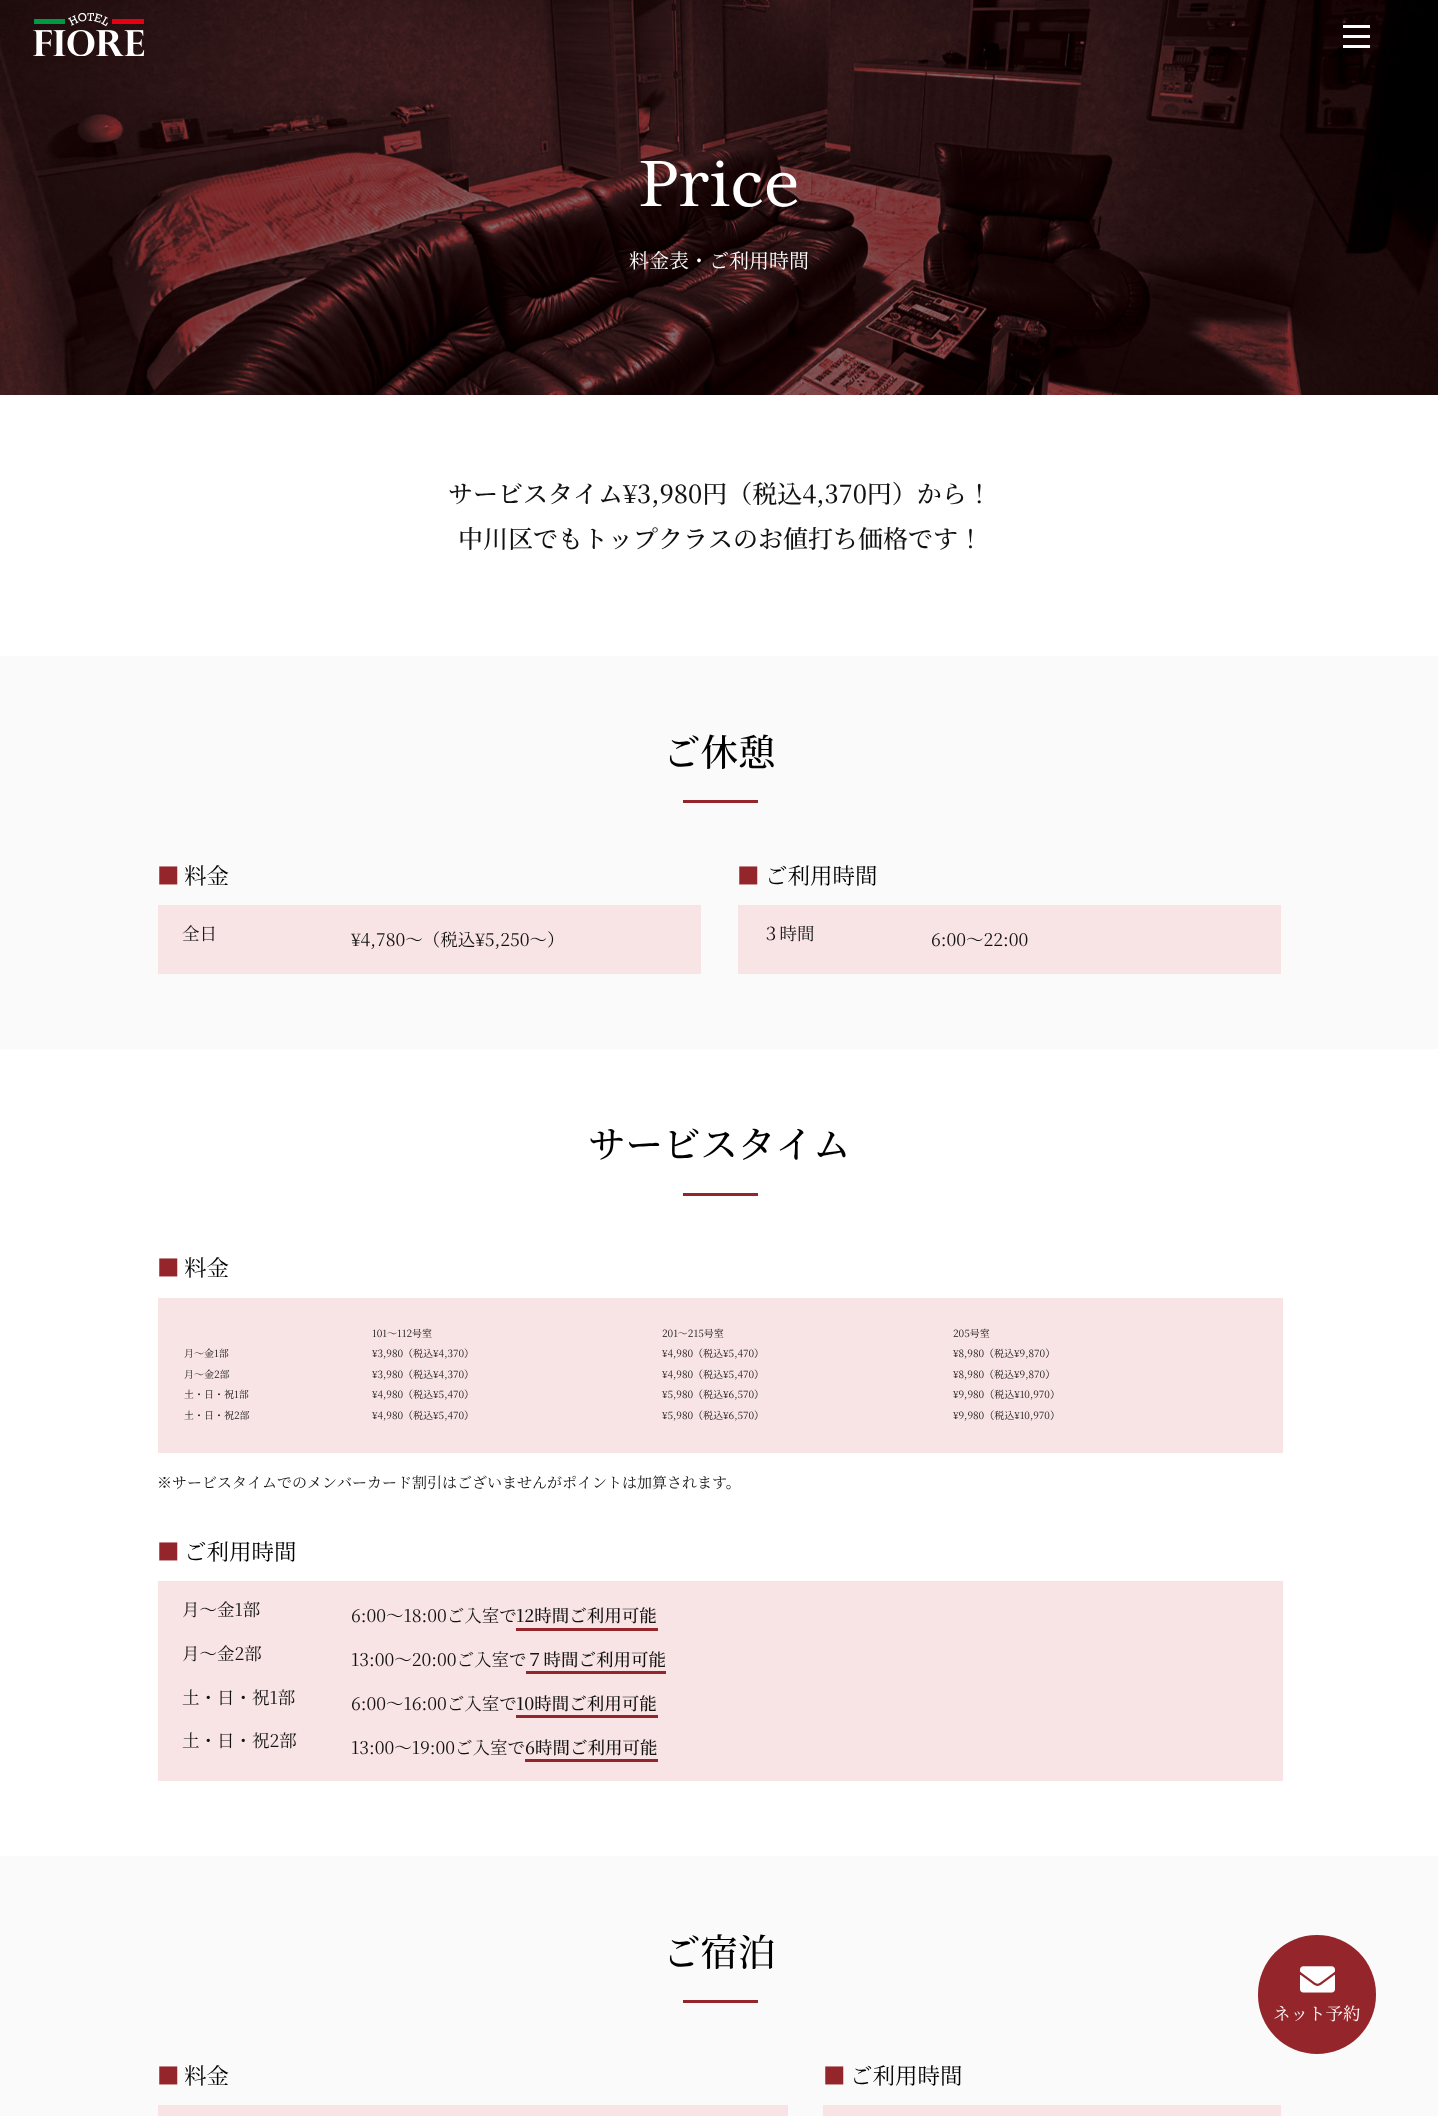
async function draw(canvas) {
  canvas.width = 1438
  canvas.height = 2116
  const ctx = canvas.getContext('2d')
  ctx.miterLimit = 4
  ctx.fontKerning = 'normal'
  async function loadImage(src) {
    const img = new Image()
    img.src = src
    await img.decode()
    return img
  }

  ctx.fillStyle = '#fff'
  ctx.fillRect(0, 0, 1438, 2116)
  ctx.drawImage(await loadImage('image0.png'), 0, 0, 1438, 395)
  ctx.font = '75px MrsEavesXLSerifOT'
  ctx.fillText('Price', 639, 206)
  ctx.font = '20px Noto Serif JP'
  ctx.fillText('料金表・ご利用時間', 629, 268)
  ctx.font = '500 25px Noto Serif JP'
  ctx.fillStyle = '#111'
  ctx.fillText('サービスタイム¥3,980円（税込4,370円）から！', 448, 503)
  ctx.fillText('中川区でもトップクラスのお値打ち価格です！', 458, 548)
  ctx.fillStyle = '#fafafa'
  ctx.fillRect(0, 656, 1438, 393)
  ctx.font = '500 37.5px Noto Serif JP'
  ctx.fillStyle = '#000'
  ctx.fillText('ご休憩', 663, 766)
  ctx.fillStyle = '#94252a'
  ctx.fillRect(683, 800, 75, 3)
  ctx.font = '22.5px Noto Serif JP'
  ctx.fillText('■', 157, 884)
  ctx.fillStyle = '#000'
  ctx.fillText('料金', 184, 884)
  ctx.fillStyle = '#f9e4e5'
  ctx.fillRect(158, 905, 543, 69)
  ctx.font = '17.5px Noto Serif JP'
  ctx.fillStyle = '#111'
  ctx.fillText('全日', 182, 940)
  ctx.fillText('¥4,780〜（税込¥5,250〜）', 351, 946)
  ctx.font = '22.5px Noto Serif JP'
  ctx.fillStyle = '#94252a'
  ctx.fillText('■', 737, 884)
  ctx.fillStyle = '#000'
  ctx.fillText('ご利用時間', 765, 884)
  ctx.fillStyle = '#f9e4e5'
  ctx.fillRect(738, 905, 543, 69)
  ctx.font = '17.5px Noto Serif JP'
  ctx.fillStyle = '#111'
  ctx.fillText('３時間', 762, 940)
  ctx.fillText('6:00～22:00', 931, 946)
  ctx.font = '500 37.5px Noto Serif JP'
  ctx.fillStyle = '#000'
  ctx.fillText('サービスタイム', 588, 1158)
  ctx.fillStyle = '#94252a'
  ctx.fillRect(683, 1193, 75, 3)
  ctx.font = '22.5px Noto Serif JP'
  ctx.fillText('■', 157, 1276)
  ctx.fillStyle = '#000'
  ctx.fillText('料金', 184, 1276)
  ctx.fillStyle = '#f9e4e5'
  ctx.fillRect(158, 1298, 1125, 155)
  ctx.font = '10px Noto Serif JP'
  ctx.fillStyle = '#111'
  ctx.fillText('101～112号室', 372, 1337)
  ctx.fillText('201～215号室', 662, 1337)
  ctx.fillText('205号室', 953, 1337)
  ctx.fillText('月～金1部', 184, 1357)
  ctx.fillText('¥3,980（税込¥4,370）', 372, 1357)
  ctx.fillText('¥4,980（税込¥5,470）', 662, 1357)
  ctx.fillText('¥8,980（税込¥9,870）', 953, 1357)
  ctx.fillText('月～金2部', 184, 1378)
  ctx.fillText('¥3,980（税込¥4,370）', 372, 1378)
  ctx.fillText('¥4,980（税込¥5,470）', 662, 1378)
  ctx.fillText('¥8,980（税込¥9,870）', 953, 1378)
  ctx.fillText('土・日・祝1部', 184, 1398)
  ctx.fillText('¥4,980（税込¥5,470）', 372, 1398)
  ctx.fillText('¥5,980（税込¥6,570）', 662, 1398)
  ctx.fillText('¥9,980（税込¥10,970）', 953, 1398)
  ctx.fillText('土・日・祝2部', 184, 1419)
  ctx.fillText('¥4,980（税込¥5,470）', 372, 1419)
  ctx.fillText('¥5,980（税込¥6,570）', 662, 1419)
  ctx.fillText('¥9,980（税込¥10,970）', 953, 1419)
  ctx.font = '15px Noto Serif JP'
  ctx.fillText('※サービスタイムでのメンバーカード割引はございませんがポイントは加算されます。', 157, 1488)
  ctx.font = '22.5px Noto Serif JP'
  ctx.fillStyle = '#94252a'
  ctx.fillText('■', 157, 1560)
  ctx.fillStyle = '#000'
  ctx.fillText('ご利用時間', 184, 1560)
  ctx.fillStyle = '#f9e4e5'
  ctx.fillRect(158, 1581, 1125, 200)
  ctx.font = '17.5px Noto Serif JP'
  ctx.fillStyle = '#111'
  ctx.fillText('月～金1部', 182, 1616)
  ctx.fillText('6:00～18:00ご入室で', 351, 1622)
  ctx.font = '500 17.5px Noto Serif JP'
  ctx.fillText('12時間ご利用可能', 516, 1622)
  ctx.fillStyle = '#94252a'
  ctx.fillRect(516, 1628, 142, 3)
  ctx.font = '17.5px Noto Serif JP'
  ctx.fillStyle = '#111'
  ctx.fillText('月～金2部', 182, 1660)
  ctx.fillText('13:00～20:00ご入室で', 351, 1666)
  ctx.font = '500 17.5px Noto Serif JP'
  ctx.fillText('７時間ご利用可能', 526, 1666)
  ctx.fillStyle = '#94252a'
  ctx.fillRect(526, 1671, 140, 3)
  ctx.font = '17.5px Noto Serif JP'
  ctx.fillStyle = '#111'
  ctx.fillText('土・日・祝1部', 182, 1704)
  ctx.fillText('6:00～16:00ご入室で', 351, 1710)
  ctx.font = '500 17.5px Noto Serif JP'
  ctx.fillText('10時間ご利用可能', 516, 1710)
  ctx.fillStyle = '#94252a'
  ctx.fillRect(516, 1715, 142, 3)
  ctx.font = '17.5px Noto Serif JP'
  ctx.fillStyle = '#111'
  ctx.fillText('土・日・祝2部', 182, 1747)
  ctx.fillText('13:00～19:00ご入室で', 351, 1754)
  ctx.font = '500 17.5px Noto Serif JP'
  ctx.fillText('6時間ご利用可能', 525, 1754)
  ctx.fillStyle = '#94252a'
  ctx.fillRect(525, 1759, 133, 3)
  ctx.fillStyle = '#fafafa'
  ctx.fillRect(0, 1856, 1438, 260)
  ctx.font = '500 37.5px Noto Serif JP'
  ctx.fillStyle = '#000'
  ctx.fillText('ご宿泊', 663, 1966)
  ctx.fillStyle = '#94252a'
  ctx.fillRect(683, 2000, 75, 3)
  ctx.font = '22.5px Noto Serif JP'
  ctx.fillText('■', 157, 2084)
  ctx.fillStyle = '#000'
  ctx.fillText('料金', 184, 2084)
  ctx.fillStyle = '#f9e4e5'
  ctx.fillRect(158, 2105, 630, 11)
  ctx.fillStyle = '#94252a'
  ctx.fillText('■', 823, 2084)
  ctx.fillStyle = '#000'
  ctx.fillText('ご利用時間', 850, 2084)
  ctx.fillStyle = '#f9e4e5'
  ctx.fillRect(823, 2105, 458, 11)
  ctx.fillStyle = '#fff'
  ctx.fillRect(1343, 45, 27, 3)
  ctx.fillRect(1343, 25, 27, 3)
  ctx.fillRect(1343, 35, 27, 3)
  ctx.drawImage(await loadImage('image1.png'), 33, 13, 112, 43)
  ctx.fillStyle = '#94252a'
  ctx.beginPath()
  ctx.roundRect(1258, 1935, 118, 119, 59)
  ctx.fill()
  ctx.drawImage(await loadImage('image2.png'), 1300, 1966, 35, 27)
  ctx.font = '17.5px Noto Serif JP'
  ctx.fillStyle = '#fff'
  ctx.fillText('ネット予約', 1273, 2020)
}

draw(document.querySelector('canvas'))
